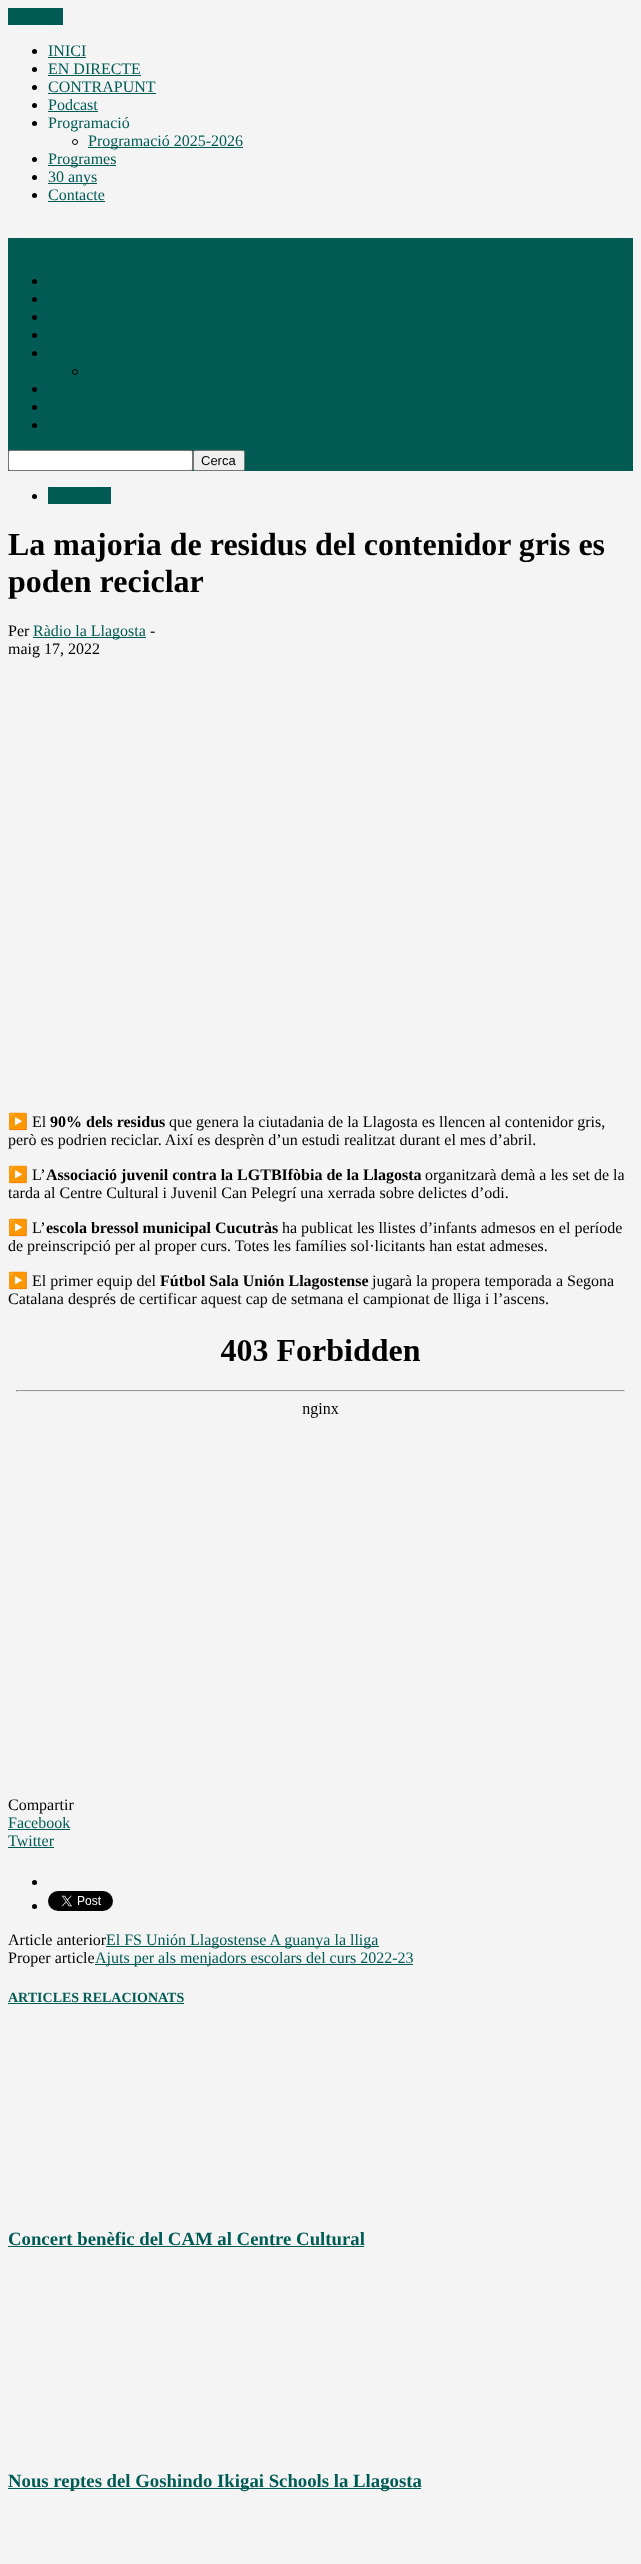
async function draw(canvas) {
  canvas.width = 641
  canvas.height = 2564
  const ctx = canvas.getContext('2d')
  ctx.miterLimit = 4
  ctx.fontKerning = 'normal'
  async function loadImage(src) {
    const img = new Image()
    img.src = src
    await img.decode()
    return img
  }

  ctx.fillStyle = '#f4f4f4'
  ctx.fillRect(0, 0, 641, 2564)
  ctx.fillStyle = '#005b55'
  ctx.fillRect(8, 8, 55, 17)
  ctx.fillStyle = '#000'
  ctx.beginPath()
  ctx.arc(34.5, 51.5, 2.5, 0, 2 * Math.PI)
  ctx.fill()
  ctx.font = '16px Liberation Serif'
  ctx.fillStyle = '#005b55'
  ctx.fillText('INICI', 48, 56)
  ctx.fillRect(48, 57, 38, 1)
  ctx.fillStyle = '#000'
  ctx.beginPath()
  ctx.arc(34.5, 69.5, 2.5, 0, 2 * Math.PI)
  ctx.fill()
  ctx.fillStyle = '#005b55'
  ctx.fillText('EN DIRECTE', 48, 74)
  ctx.fillRect(48, 75, 93, 1)
  ctx.fillStyle = '#000'
  ctx.beginPath()
  ctx.arc(34.5, 87.5, 2.5, 0, 2 * Math.PI)
  ctx.fill()
  ctx.fillStyle = '#005b55'
  ctx.fillText('CONTRAPUNT', 48, 92)
  ctx.fillRect(48, 93, 108, 1)
  ctx.fillStyle = '#000'
  ctx.beginPath()
  ctx.arc(34.5, 105.5, 2.5, 0, 2 * Math.PI)
  ctx.fill()
  ctx.fillStyle = '#005b55'
  ctx.fillText('Podcast', 48, 110)
  ctx.fillRect(48, 111, 50, 1)
  ctx.fillStyle = '#000'
  ctx.beginPath()
  ctx.arc(34.5, 123.5, 2.5, 0, 2 * Math.PI)
  ctx.fill()
  ctx.fillStyle = '#005b55'
  ctx.fillText('Programació', 48, 128)
  ctx.beginPath()
  ctx.arc(75, 142, 2.5, 0, 2 * Math.PI)
  ctx.strokeStyle = '#000'
  ctx.stroke()
  ctx.fillRect(88, 147, 155, 1)
  ctx.fillText('Programació 2025-2026', 88, 146)
  ctx.fillStyle = '#000'
  ctx.beginPath()
  ctx.arc(34.5, 159.5, 2.5, 0, 2 * Math.PI)
  ctx.fill()
  ctx.fillStyle = '#005b55'
  ctx.fillRect(48, 165, 68, 1)
  ctx.fillText('Programes', 48, 164)
  ctx.fillStyle = '#000'
  ctx.beginPath()
  ctx.arc(34.5, 177.5, 2.5, 0, 2 * Math.PI)
  ctx.fill()
  ctx.fillStyle = '#005b55'
  ctx.fillRect(48, 183, 49, 1)
  ctx.fillText('30 anys', 48, 182)
  ctx.fillStyle = '#000'
  ctx.beginPath()
  ctx.arc(34.5, 195.5, 2.5, 0, 2 * Math.PI)
  ctx.fill()
  ctx.fillStyle = '#005b55'
  ctx.fillText('Contacte', 48, 200)
  ctx.fillRect(48, 201, 57, 1)
  ctx.fillRect(8, 238, 625, 233)
  ctx.fillStyle = '#000'
  ctx.beginPath()
  ctx.arc(34.5, 281.5, 2.5, 0, 2 * Math.PI)
  ctx.fill()
  ctx.beginPath()
  ctx.arc(34.5, 299.5, 2.5, 0, 2 * Math.PI)
  ctx.fill()
  ctx.beginPath()
  ctx.arc(34.5, 317.5, 2.5, 0, 2 * Math.PI)
  ctx.fill()
  ctx.beginPath()
  ctx.arc(34.5, 335.5, 2.5, 0, 2 * Math.PI)
  ctx.fill()
  ctx.beginPath()
  ctx.arc(34.5, 353.5, 2.5, 0, 2 * Math.PI)
  ctx.fill()
  ctx.beginPath()
  ctx.arc(75, 372, 2.5, 0, 2 * Math.PI)
  ctx.stroke()
  ctx.beginPath()
  ctx.arc(34.5, 389.5, 2.5, 0, 2 * Math.PI)
  ctx.fill()
  ctx.beginPath()
  ctx.arc(34.5, 407.5, 2.5, 0, 2 * Math.PI)
  ctx.fill()
  ctx.beginPath()
  ctx.arc(34.5, 425.5, 2.5, 0, 2 * Math.PI)
  ctx.fill()
  ctx.fillStyle = '#fff'
  ctx.beginPath()
  ctx.roundRect(8.5, 450.5, 184, 20, 1.5)
  ctx.fill()
  ctx.strokeStyle = '#767676'
  ctx.stroke()
  ctx.fillStyle = '#efefef'
  ctx.beginPath()
  ctx.roundRect(193.5, 450.5, 51, 20, 1.5)
  ctx.fill()
  ctx.stroke()
  ctx.font = '13px Liberation Sans'
  ctx.fillStyle = '#000'
  ctx.fillText('Cerca', 201, 465)
  ctx.beginPath()
  ctx.arc(34.5, 496.5, 2.5, 0, 2 * Math.PI)
  ctx.fill()
  ctx.fillStyle = '#005b55'
  ctx.fillRect(48, 487, 63, 17)
  ctx.font = 'bold 32px Liberation Serif'
  ctx.fillStyle = '#000'
  ctx.fillText('La majoria de residus del contenidor gris es', 8, 555)
  ctx.fillText('poden reciclar', 8, 592)
  ctx.font = '16px Liberation Serif'
  ctx.fillText('Per', 8, 636)
  ctx.fillStyle = '#005b55'
  ctx.fillRect(33, 637, 113, 1)
  ctx.fillText('Ràdio la Llagosta', 33, 636)
  ctx.fillStyle = '#000'
  ctx.fillText('-', 150, 636)
  ctx.fillText('maig 17, 2022', 8, 654)
  ctx.font = '16px Noto Color Emoji'
  ctx.fillText('▶️', 8, 1127)
  ctx.font = '16px Liberation Serif'
  ctx.fillText('El', 32, 1127)
  ctx.font = 'bold 16px Liberation Serif'
  ctx.fillText('90% dels residus', 50, 1127)
  ctx.font = '16px Liberation Serif'
  ctx.fillText('que genera la ciutadania de la Llagosta es llencen al contenidor gris,', 169, 1127)
  ctx.fillText('però es podrien reciclar. Així es desprèn d’un estudi realitzat durant el mes d’abril.', 8, 1145)
  ctx.font = '16px Noto Color Emoji'
  ctx.fillText('▶️', 8, 1180)
  ctx.font = '16px Liberation Serif'
  ctx.fillText('L’', 32, 1180)
  ctx.font = 'bold 16px Liberation Serif'
  ctx.fillText('Associació juvenil contra la LGTBIfòbia de la Llagosta', 46, 1180)
  ctx.font = '16px Liberation Serif'
  ctx.fillText('organitzarà demà a les set de la', 425, 1180)
  ctx.fillText('tarda al Centre Cultural i Juvenil Can Pelegrí una xerrada sobre delictes d’odi.', 8, 1198)
  ctx.font = '16px Noto Color Emoji'
  ctx.fillText('▶️', 8, 1233)
  ctx.font = '16px Liberation Serif'
  ctx.fillText('L’', 32, 1233)
  ctx.font = 'bold 16px Liberation Serif'
  ctx.fillText('escola bressol municipal Cucutràs', 46, 1233)
  ctx.font = '16px Liberation Serif'
  ctx.fillText('ha publicat les llistes d’infants admesos en el període', 282, 1233)
  ctx.fillText('de preinscripció per al proper curs. Totes les famílies sol·licitants han estat admeses.', 8, 1251)
  ctx.font = '16px Noto Color Emoji'
  ctx.fillText('▶️', 8, 1286)
  ctx.font = '16px Liberation Serif'
  ctx.fillText('El primer equip del', 32, 1286)
  ctx.font = 'bold 16px Liberation Serif'
  ctx.fillText('Fútbol Sala Unión Llagostense', 160, 1286)
  ctx.font = '16px Liberation Serif'
  ctx.fillText('jugarà la propera temporada a Segona', 372, 1286)
  ctx.fillText('Catalana després de certificar aquest cap de setmana el campionat de lliga i l’ascens.', 8, 1304)
  ctx.drawImage(await loadImage('image0.png'), 16, 1339, 609, 79)
  ctx.fillText('Compartir', 8, 1810)
  ctx.fillStyle = '#005b55'
  ctx.fillText('Facebook', 8, 1828)
  ctx.fillRect(8, 1829, 62, 1)
  ctx.fillText('Twitter', 8, 1846)
  ctx.fillRect(8, 1847, 46, 1)
  ctx.fillStyle = '#000'
  ctx.beginPath()
  ctx.arc(34.5, 1882.5, 2.5, 0, 2 * Math.PI)
  ctx.fill()
  ctx.beginPath()
  ctx.arc(34.5, 1906.5, 2.5, 0, 2 * Math.PI)
  ctx.fill()
  ctx.drawImage(await loadImage('image1.png'), 48, 1891, 65, 20)
  ctx.fillText('Article anterior', 8, 1945)
  ctx.fillStyle = '#005b55'
  ctx.fillRect(106, 1946, 273, 1)
  ctx.fillText('El FS Unión Llagostense A guanya la lliga', 106, 1945)
  ctx.fillStyle = '#000'
  ctx.fillText('Proper article', 8, 1963)
  ctx.fillStyle = '#005b55'
  ctx.fillRect(95, 1964, 318, 1)
  ctx.fillText('Ajuts per als menjadors escolars del curs 2022-23', 95, 1963)
  ctx.font = 'bold 14px Liberation Serif'
  ctx.fillText('ARTICLES RELACIONATS', 8, 2002)
  ctx.fillRect(8, 2003, 176, 1)
  ctx.font = 'bold 18.75px Liberation Serif'
  ctx.fillText('Concert benèfic del CAM al Centre Cultural', 8, 2245)
  ctx.fillRect(8, 2246, 356, 1)
  ctx.fillRect(8, 2488, 413, 1)
  ctx.fillText('Nous reptes del Goshindo Ikigai Schools la Llagosta', 8, 2487)
}

draw(document.querySelector('canvas'))
